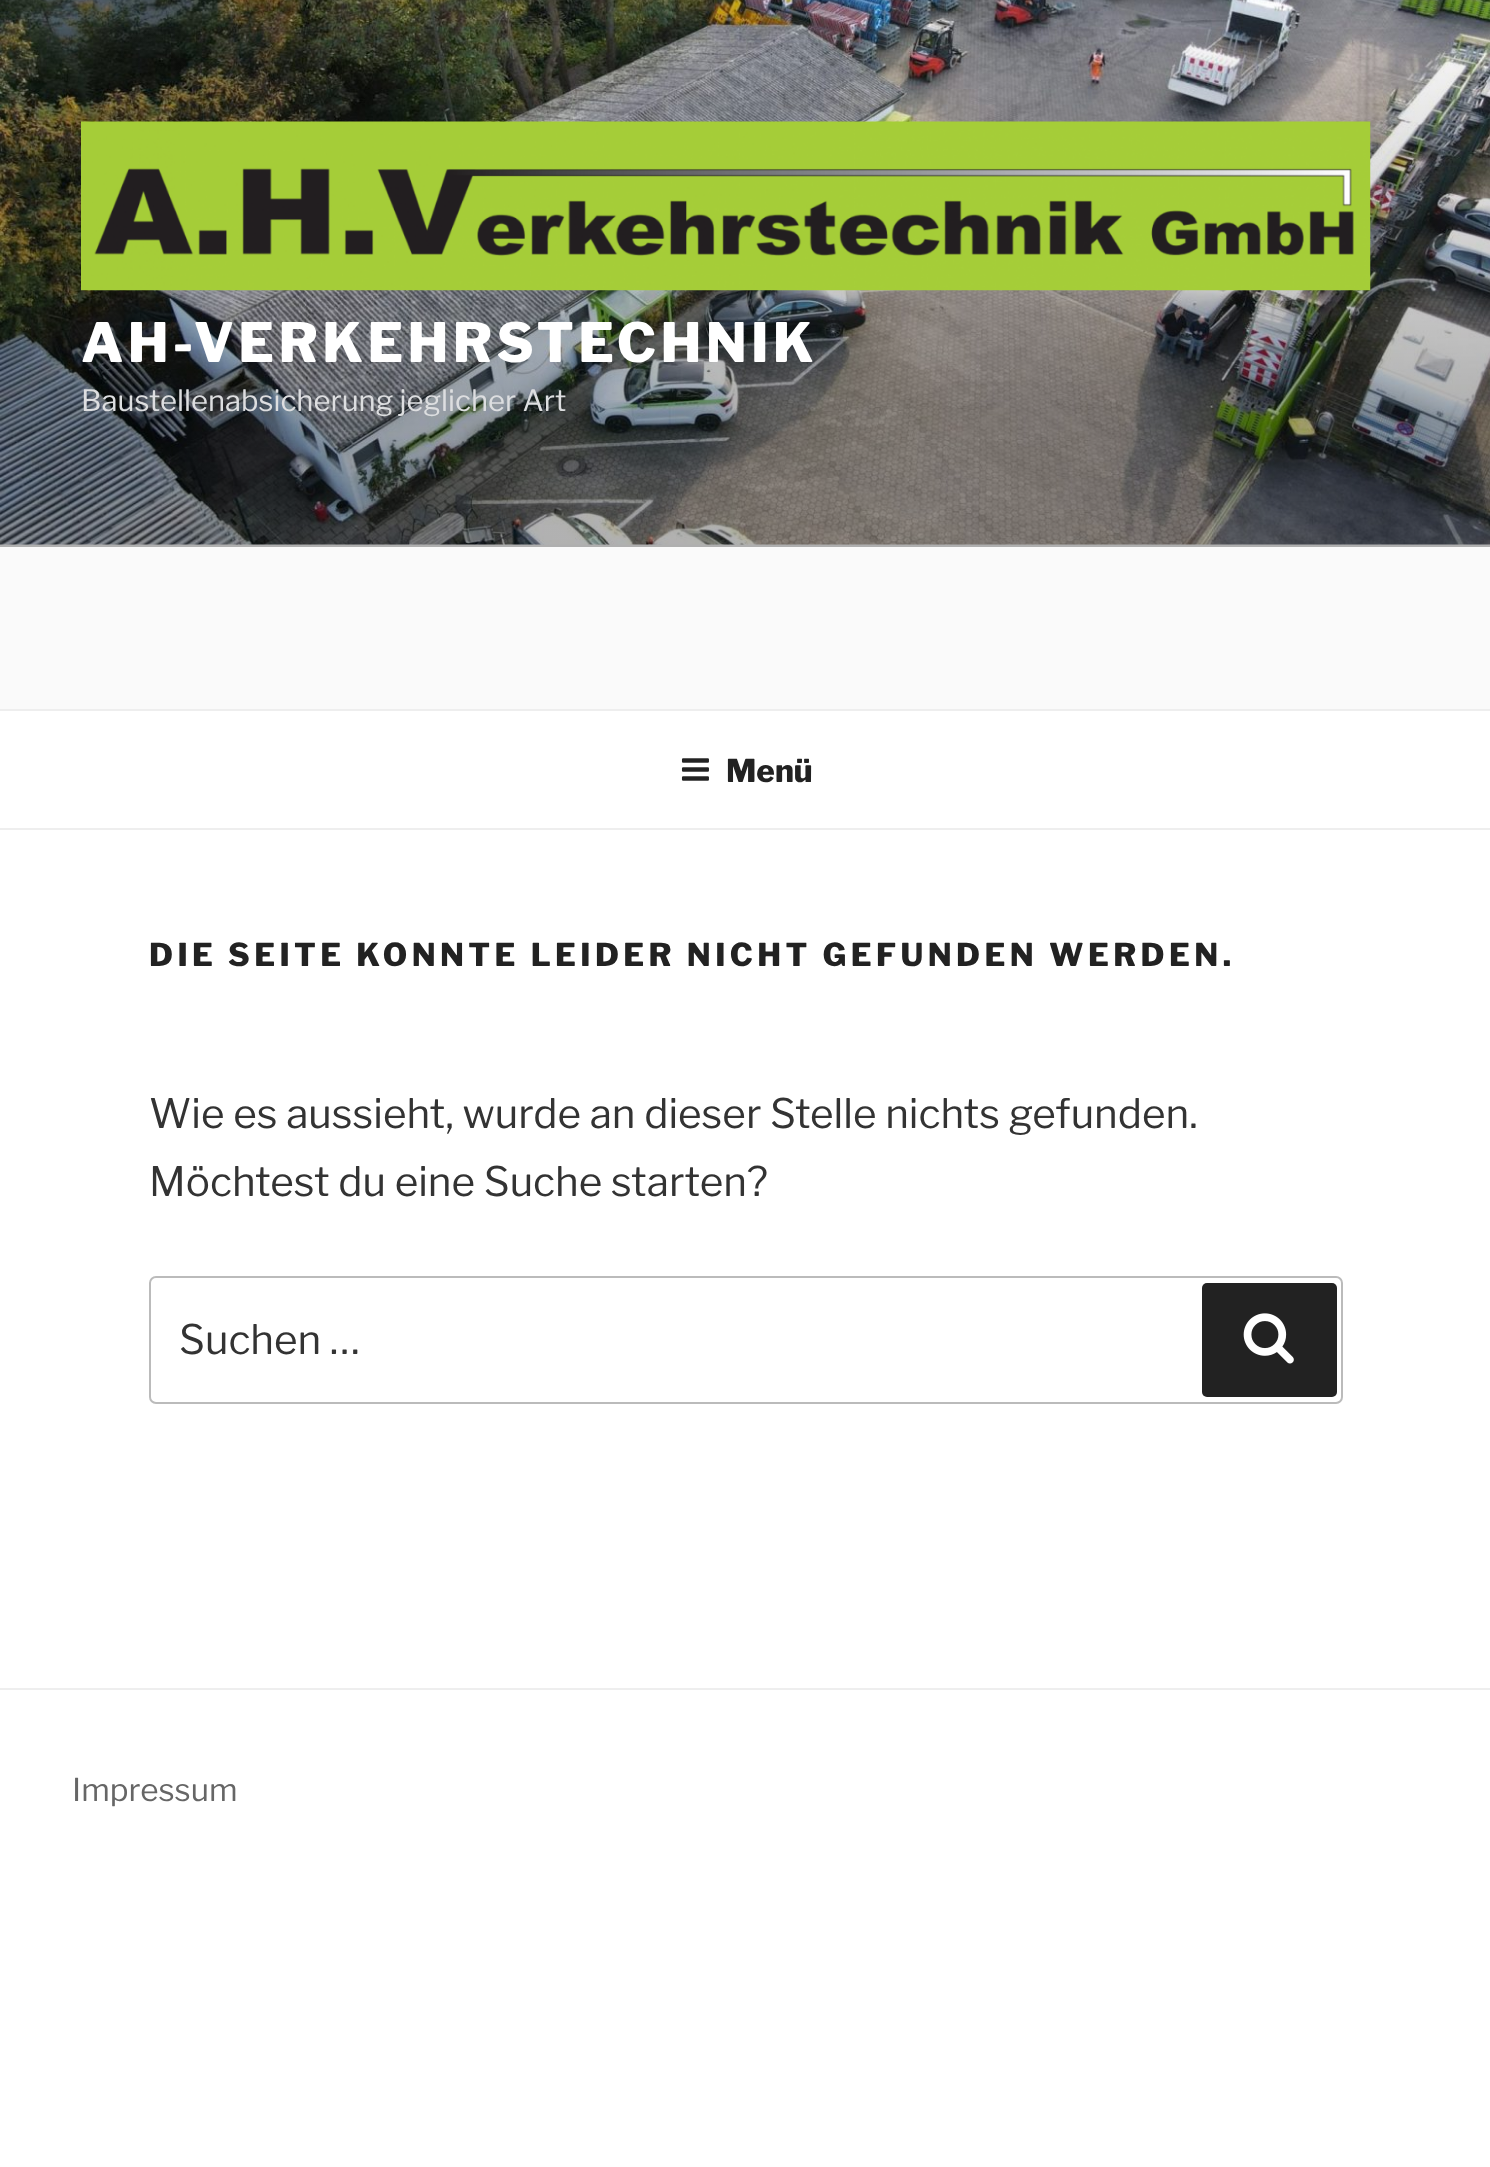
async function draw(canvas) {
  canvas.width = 1490
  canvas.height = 2167
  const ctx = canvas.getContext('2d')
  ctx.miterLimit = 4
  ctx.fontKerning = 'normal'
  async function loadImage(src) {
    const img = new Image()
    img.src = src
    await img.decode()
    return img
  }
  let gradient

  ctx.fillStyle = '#fff'
  ctx.fillRect(0, 0, 1490, 2167)
  ctx.fillStyle = '#fafafa'
  ctx.fillRect(0, 544, 1490, 165)
  ctx.drawImage(await loadImage('image0.png'), 0, 0, 1490, 545)
  gradient = ctx.createLinearGradient(746, 0, 746, 547)
  gradient.addColorStop(0, '#00000000')
  gradient.addColorStop(0.75, '#0000004d')
  gradient.addColorStop(1, '#0000004d')
  ctx.fillStyle = gradient
  ctx.fillRect(0, 29, 1490, 518)
  ctx.drawImage(await loadImage('image1.png'), 81, 121, 1290, 170)
  ctx.letterSpacing = '4.3px'
  ctx.font = '100 54px Libre Franklin'
  ctx.fillStyle = '#fff'
  ctx.fillText('AH-VERKEHRSTECHNIK', 81, 362)
  ctx.letterSpacing = '0px'
  ctx.font = '100 29.25px "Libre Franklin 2"'
  ctx.fillStyle = '#dddee0'
  ctx.fillText('Baustellenabsicherung jeglicher Art', 81, 411)
  ctx.fillStyle = '#eee'
  ctx.fillRect(0, 709, 1490, 2)
  ctx.fillRect(0, 828, 1490, 2)
  ctx.drawImage(await loadImage('image2.png'), 681, 758, 28, 23)
  ctx.font = '100 31.5px Libre Franklin'
  ctx.fillStyle = '#222'
  ctx.fillText('Menü', 726, 782)
  ctx.letterSpacing = '4.4px'
  ctx.fillText('DIE SEITE KONNTE LEIDER NICHT GEFUNDEN WERDEN.', 149, 966)
  ctx.letterSpacing = '0px'
  ctx.font = '100 40.5px "Libre Franklin 2"'
  ctx.fillStyle = '#333'
  ctx.fillText('Wie es aussieht, wurde an dieser Stelle nichts gefunden.', 149, 1128)
  ctx.fillText('Möchtest du eine Suche starten?', 149, 1196)
  ctx.beginPath()
  ctx.roundRect(150, 1277, 1192, 126, 6)
  ctx.strokeStyle = '#bbb'
  ctx.lineWidth = 2
  ctx.stroke()
  ctx.fillText('Suchen …', 179, 1354)
  ctx.fillStyle = '#222'
  ctx.beginPath()
  ctx.roundRect(1202, 1283, 135, 114, 5)
  ctx.fill()
  ctx.drawImage(await loadImage('image3.png'), 1243, 1313, 51, 51)
  ctx.fillStyle = '#eee'
  ctx.fillRect(0, 1688, 1490, 2)
  ctx.font = '100 31.5px "Libre Franklin 2"'
  ctx.fillStyle = '#666'
  ctx.fillText('Impressum', 72, 1801)
}

draw(document.querySelector('canvas'))
